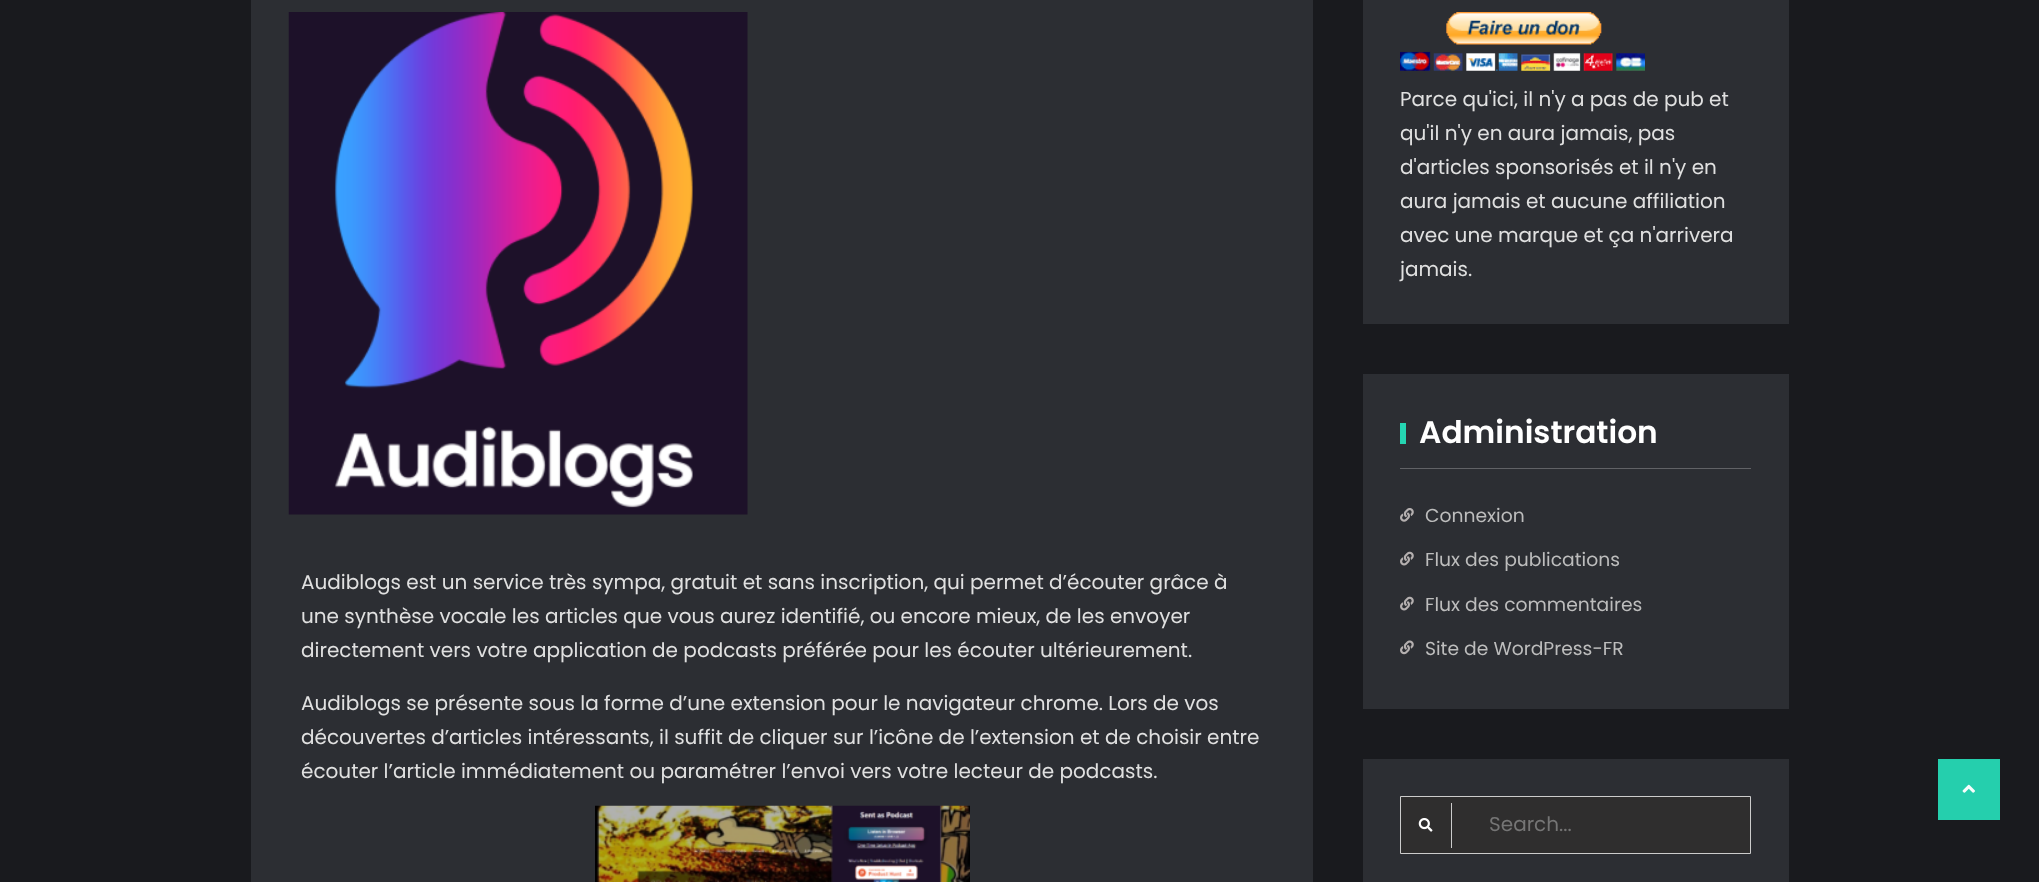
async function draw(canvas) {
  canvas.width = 2039
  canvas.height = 882
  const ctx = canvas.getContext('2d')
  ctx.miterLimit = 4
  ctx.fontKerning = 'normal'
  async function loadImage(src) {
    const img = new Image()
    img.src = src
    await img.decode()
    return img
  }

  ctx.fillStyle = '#191a1e'
  ctx.fillRect(0, 0, 2039, 882)
  ctx.fillStyle = '#2c2e33'
  ctx.fillRect(251, 0, 1062, 882)
  ctx.drawImage(await loadImage('image0.png'), 288, 12, 460, 503)
  ctx.font = '20px Poppins'
  ctx.fillStyle = '#e0e0e0'
  ctx.fillText('Audiblogs est un service très sympa, gratuit et sans inscription, qui permet d’écouter grâce à', 301, 589)
  ctx.fillText('une synthèse vocale les articles que vous aurez identifié, ou encore mieux, de les envoyer', 301, 623)
  ctx.fillText('directement vers votre application de podcasts préférée pour les écouter ultérieurement.', 301, 657)
  ctx.fillText('Audiblogs se présente sous la forme d’une extension pour le navigateur chrome. Lors de vos', 301, 710)
  ctx.fillText('découvertes d’articles intéressants, il suffit de cliquer sur l’icône de l’extension et de choisir entre', 301, 744)
  ctx.fillText('écouter l’article immédiatement ou paramétrer l’envoi vers votre lecteur de podcasts.', 301, 778)
  ctx.drawImage(await loadImage('image1.png'), 595, 805, 375, 77)
  ctx.fillStyle = '#2c2e33'
  ctx.fillRect(1363, 0, 426, 324)
  ctx.drawImage(await loadImage('image2.png'), 1400, 12, 245, 59)
  ctx.fillStyle = '#e0e0e0'
  ctx.fillText('Parce qu\'ici, il n\'y a pas de pub et', 1400, 106)
  ctx.fillText('qu\'il n\'y en aura jamais, pas', 1400, 140)
  ctx.fillText('d\'articles sponsorisés et il n\'y en', 1400, 174)
  ctx.fillText('aura jamais et aucune affiliation', 1400, 208)
  ctx.fillText('avec une marque et ça n\'arrivera', 1400, 242)
  ctx.fillText('jamais.', 1400, 276)
  ctx.fillStyle = '#2c2e33'
  ctx.fillRect(1363, 374, 426, 335)
  ctx.fillStyle = '#616266'
  ctx.fillRect(1400, 468, 351, 1)
  ctx.fillStyle = '#25d5b2'
  ctx.fillRect(1400, 423, 6, 21)
  ctx.font = '600 31.25px Poppins'
  ctx.fillStyle = '#fff'
  ctx.fillText('Administration', 1419, 443)
  ctx.drawImage(await loadImage('image3.png'), 1400, 508, 14, 14)
  ctx.font = '18.75px Poppins'
  ctx.fillStyle = '#bdbdbd'
  ctx.fillText('Connexion', 1425, 522)
  ctx.drawImage(await loadImage('image4.png'), 1400, 551, 14, 15)
  ctx.fillText('Flux des publications', 1425, 566)
  ctx.drawImage(await loadImage('image4.png'), 1400, 596, 14, 15)
  ctx.fillText('Flux des commentaires', 1425, 611)
  ctx.drawImage(await loadImage('image5.png'), 1400, 640, 14, 15)
  ctx.fillText('Site de WordPress-FR', 1425, 655)
  ctx.fillStyle = '#2c2e33'
  ctx.fillRect(1363, 759, 426, 123)
  ctx.fillStyle = '#2f2e2e'
  ctx.beginPath()
  ctx.rect(1400.5, 796.5, 350, 57)
  ctx.fill()
  ctx.strokeStyle = '#ccc'
  ctx.stroke()
  ctx.fillStyle = '#ccc'
  ctx.fillRect(1451, 803, 1, 45)
  ctx.drawImage(await loadImage('image6.png'), 1418, 818, 15, 14)
  ctx.font = '20px Poppins'
  ctx.fillStyle = '#757575'
  ctx.fillText('Search...', 1489, 831)
  ctx.fillStyle = '#25cfad'
  ctx.fillRect(1938, 759, 62, 61)
  ctx.drawImage(await loadImage('image7.png'), 1962, 784, 13, 9)
}

draw(document.querySelector('canvas'))
